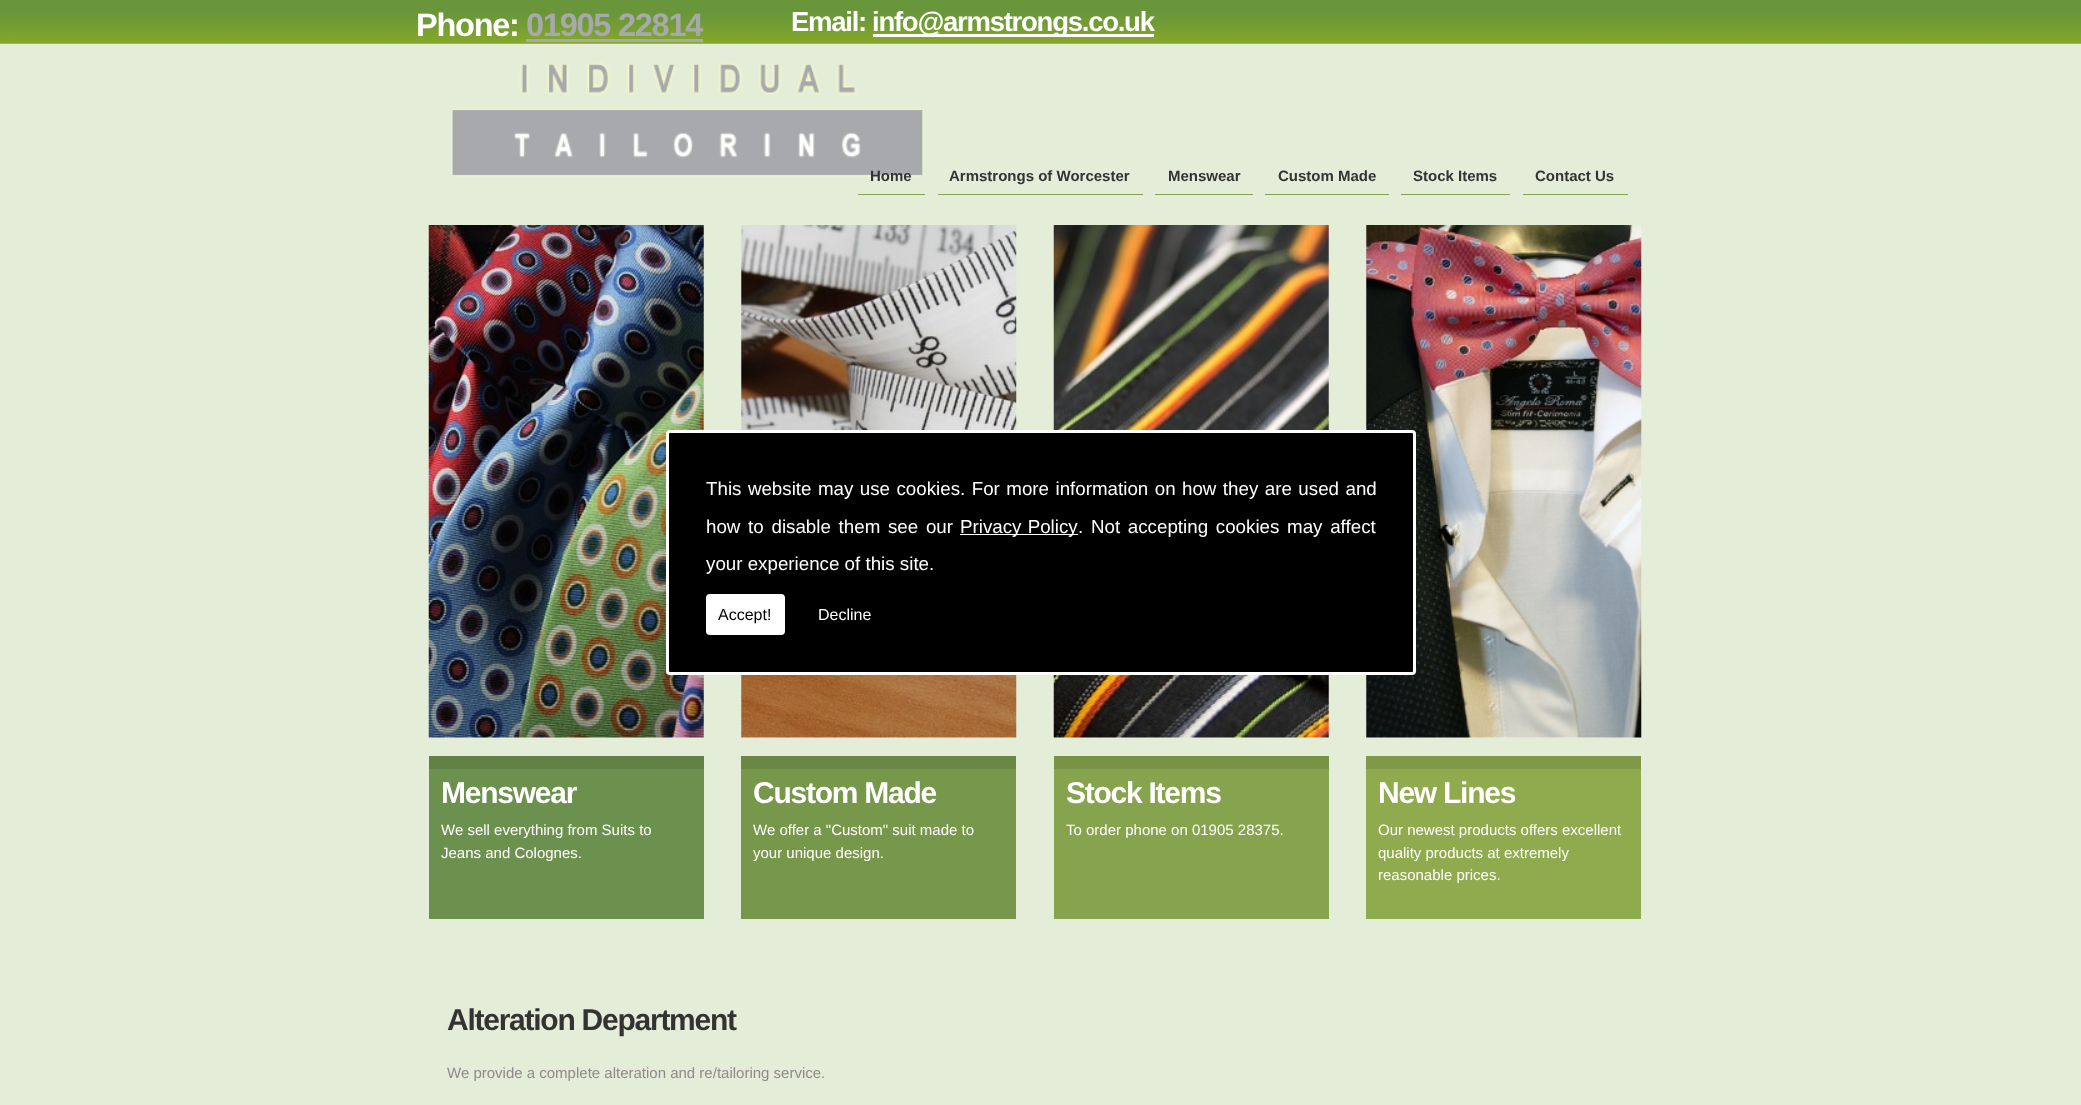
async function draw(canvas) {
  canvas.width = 2081
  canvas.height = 1105
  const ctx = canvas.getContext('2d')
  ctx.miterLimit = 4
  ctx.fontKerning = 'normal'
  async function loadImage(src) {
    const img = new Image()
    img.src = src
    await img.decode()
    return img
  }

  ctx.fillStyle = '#e4edd8'
  ctx.fillRect(0, 0, 2081, 1105)
  ctx.drawImage(await loadImage('image0.png'), 0, 0, 2081, 44)
  ctx.drawImage(await loadImage('image1.png'), 451, 62, 473, 115)
  ctx.letterSpacing = '-1.25px'
  ctx.font = 'bold 32.5px Liberation Sans'
  ctx.fillStyle = '#fff'
  ctx.fillText('Phone:', 416, 36)
  ctx.fillStyle = '#a8a9ad'
  ctx.fillText('01905 22814', 526, 36)
  ctx.fillRect(526, 39, 177, 3)
  ctx.font = 'bold 27.5px Liberation Sans'
  ctx.fillStyle = '#fff'
  ctx.fillText('Email:', 791, 31)
  ctx.fillRect(873, 34, 281, 3)
  ctx.fillText('info@armstrongs.co.uk', 872, 31)
  ctx.fillStyle = '#86a44e'
  ctx.fillRect(858, 194, 67, 1)
  ctx.letterSpacing = '0px'
  ctx.font = 'bold 15px Liberation Sans'
  ctx.fillStyle = '#333'
  ctx.fillText('Home', 870, 181)
  ctx.fillStyle = '#86a44e'
  ctx.fillRect(938, 194, 205, 1)
  ctx.fillStyle = '#333'
  ctx.fillText('Armstrongs of Worcester', 949, 181)
  ctx.fillStyle = '#86a44e'
  ctx.fillRect(1155, 194, 98, 1)
  ctx.fillStyle = '#333'
  ctx.fillText('Menswear', 1168, 181)
  ctx.fillStyle = '#86a44e'
  ctx.fillRect(1265, 194, 124, 1)
  ctx.fillStyle = '#333'
  ctx.fillText('Custom Made', 1278, 181)
  ctx.fillStyle = '#86a44e'
  ctx.fillRect(1401, 194, 109, 1)
  ctx.fillStyle = '#333'
  ctx.fillText('Stock Items', 1413, 181)
  ctx.fillStyle = '#86a44e'
  ctx.fillRect(1523, 194, 105, 1)
  ctx.fillStyle = '#333'
  ctx.fillText('Contact Us', 1535, 181)
  ctx.fillStyle = '#eee'
  ctx.fillRect(429, 225, 275, 513)
  ctx.drawImage(await loadImage('image2.png'), 428, 225, 276, 513)
  ctx.fillRect(741, 225, 275, 513)
  ctx.drawImage(await loadImage('image3.png'), 741, 225, 276, 513)
  ctx.fillRect(1054, 225, 275, 513)
  ctx.drawImage(await loadImage('image4.png'), 1053, 225, 276, 513)
  ctx.fillRect(1366, 225, 275, 513)
  ctx.drawImage(await loadImage('image5.png'), 1366, 225, 276, 513)
  ctx.fillStyle = '#6c914e'
  ctx.fillRect(429, 769, 275, 150)
  ctx.fillStyle = '#618246'
  ctx.fillRect(429, 756, 275, 13)
  ctx.letterSpacing = '-1.25px'
  ctx.font = 'bold 30px Liberation Sans'
  ctx.fillStyle = '#fff'
  ctx.fillText('Menswear', 441, 803)
  ctx.letterSpacing = '0px'
  ctx.font = '15px Liberation Sans'
  ctx.fillText('We sell everything from Suits to', 441, 835)
  ctx.fillText('Jeans and Colognes.', 441, 858)
  ctx.fillStyle = '#77974b'
  ctx.fillRect(741, 769, 275, 150)
  ctx.fillStyle = '#6a8743'
  ctx.fillRect(741, 756, 275, 13)
  ctx.letterSpacing = '-1.25px'
  ctx.font = 'bold 30px Liberation Sans'
  ctx.fillStyle = '#fff'
  ctx.fillText('Custom Made', 753, 803)
  ctx.letterSpacing = '0px'
  ctx.font = '15px Liberation Sans'
  ctx.fillText('We offer a "Custom" suit made to', 753, 835)
  ctx.fillText('your unique design.', 753, 858)
  ctx.fillStyle = '#86a44e'
  ctx.fillRect(1054, 769, 275, 150)
  ctx.fillStyle = '#789346'
  ctx.fillRect(1054, 756, 275, 13)
  ctx.letterSpacing = '-1.25px'
  ctx.font = 'bold 30px Liberation Sans'
  ctx.fillStyle = '#fff'
  ctx.fillText('Stock Items', 1066, 803)
  ctx.letterSpacing = '0px'
  ctx.font = '15px Liberation Sans'
  ctx.fillText('To order phone on 01905 28375.', 1066, 835)
  ctx.fillStyle = '#90ab4e'
  ctx.fillRect(1366, 769, 275, 150)
  ctx.fillStyle = '#819946'
  ctx.fillRect(1366, 756, 275, 13)
  ctx.letterSpacing = '-1.25px'
  ctx.font = 'bold 30px Liberation Sans'
  ctx.fillStyle = '#fff'
  ctx.fillText('New Lines', 1378, 803)
  ctx.letterSpacing = '0px'
  ctx.font = '15px Liberation Sans'
  ctx.fillText('Our newest products offers excellent', 1378, 835)
  ctx.fillText('quality products at extremely', 1378, 858)
  ctx.fillText('reasonable prices.', 1378, 880)
  ctx.letterSpacing = '-1.25px'
  ctx.font = 'bold 30px Liberation Sans'
  ctx.fillStyle = '#333'
  ctx.fillText('Alteration Department', 447, 1030)
  ctx.letterSpacing = '0px'
  ctx.font = '15px Liberation Sans'
  ctx.fillStyle = '#91888c'
  ctx.fillText('We provide a complete alteration and re/tailoring service.', 447, 1078)
  ctx.fillStyle = '#000'
  ctx.beginPath()
  ctx.roundRect(667.5, 431.5, 747, 242, 2.5)
  ctx.fill()
  ctx.strokeStyle = '#fff'
  ctx.lineWidth = 3
  ctx.stroke()
  ctx.wordSpacing = '1.25px'
  ctx.font = '18.75px Liberation Sans'
  ctx.fillStyle = '#fff'
  ctx.fillText('This website may use cookies. For more information on how they are used and', 706, 495)
  ctx.wordSpacing = '2.5px'
  ctx.fillText('how to disable them see our', 706, 533)
  ctx.fillRect(960, 534, 118, 1)
  ctx.wordSpacing = '1px'
  ctx.fillText('Privacy Policy', 960, 533)
  ctx.wordSpacing = '2.5px'
  ctx.fillText('. Not accepting cookies may affect', 1078, 533)
  ctx.wordSpacing = '0px'
  ctx.fillText('your experience of this site.', 706, 570)
  ctx.beginPath()
  ctx.roundRect(706, 594, 79, 41, 4)
  ctx.fill()
  ctx.font = '16px Liberation Sans'
  ctx.fillStyle = '#000'
  ctx.fillText('Accept!', 718, 620)
  ctx.fillStyle = '#fff'
  ctx.fillText('Decline', 818, 620)
}

draw(document.querySelector('canvas'))
